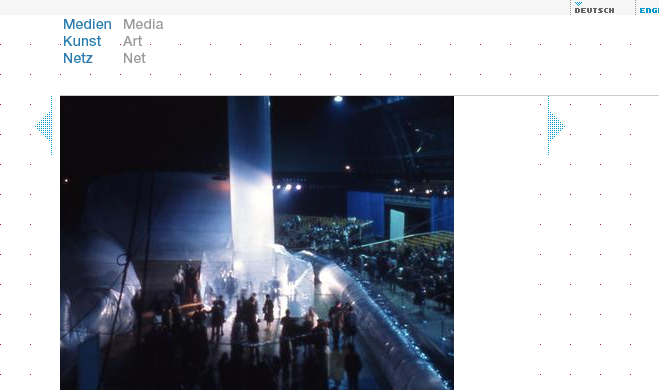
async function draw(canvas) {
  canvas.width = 659
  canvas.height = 390
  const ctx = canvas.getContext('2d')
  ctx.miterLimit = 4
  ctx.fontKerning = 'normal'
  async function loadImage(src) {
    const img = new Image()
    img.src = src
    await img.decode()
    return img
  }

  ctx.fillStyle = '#fff'
  ctx.fillRect(0, 0, 659, 390)
  ctx.drawImage(await loadImage('image0.png'), 0, 44, 631, 331)
  ctx.fillStyle = '#f6f6f6'
  ctx.fillRect(0, 0, 659, 15)
  ctx.drawImage(await loadImage('image1.png'), 570, 0, 44, 15)
  ctx.drawImage(await loadImage('image2.png'), 635, 0, 24, 15)
  ctx.drawImage(await loadImage('image3.png'), 64, 19, 47, 44)
  ctx.drawImage(await loadImage('image4.png'), 123, 19, 41, 44)
  ctx.fillStyle = '#ccc'
  ctx.fillRect(60, 95, 599, 1)
  ctx.drawImage(await loadImage('image5.png'), 35, 96, 17, 59)
  ctx.fillStyle = '#fff'
  ctx.fillRect(480, 104, 31, 271)
  ctx.drawImage(await loadImage('image6.png'), 60, 96, 394, 294)
  ctx.drawImage(await loadImage('image7.png'), 548, 96, 17, 59)
}

draw(document.querySelector('canvas'))
